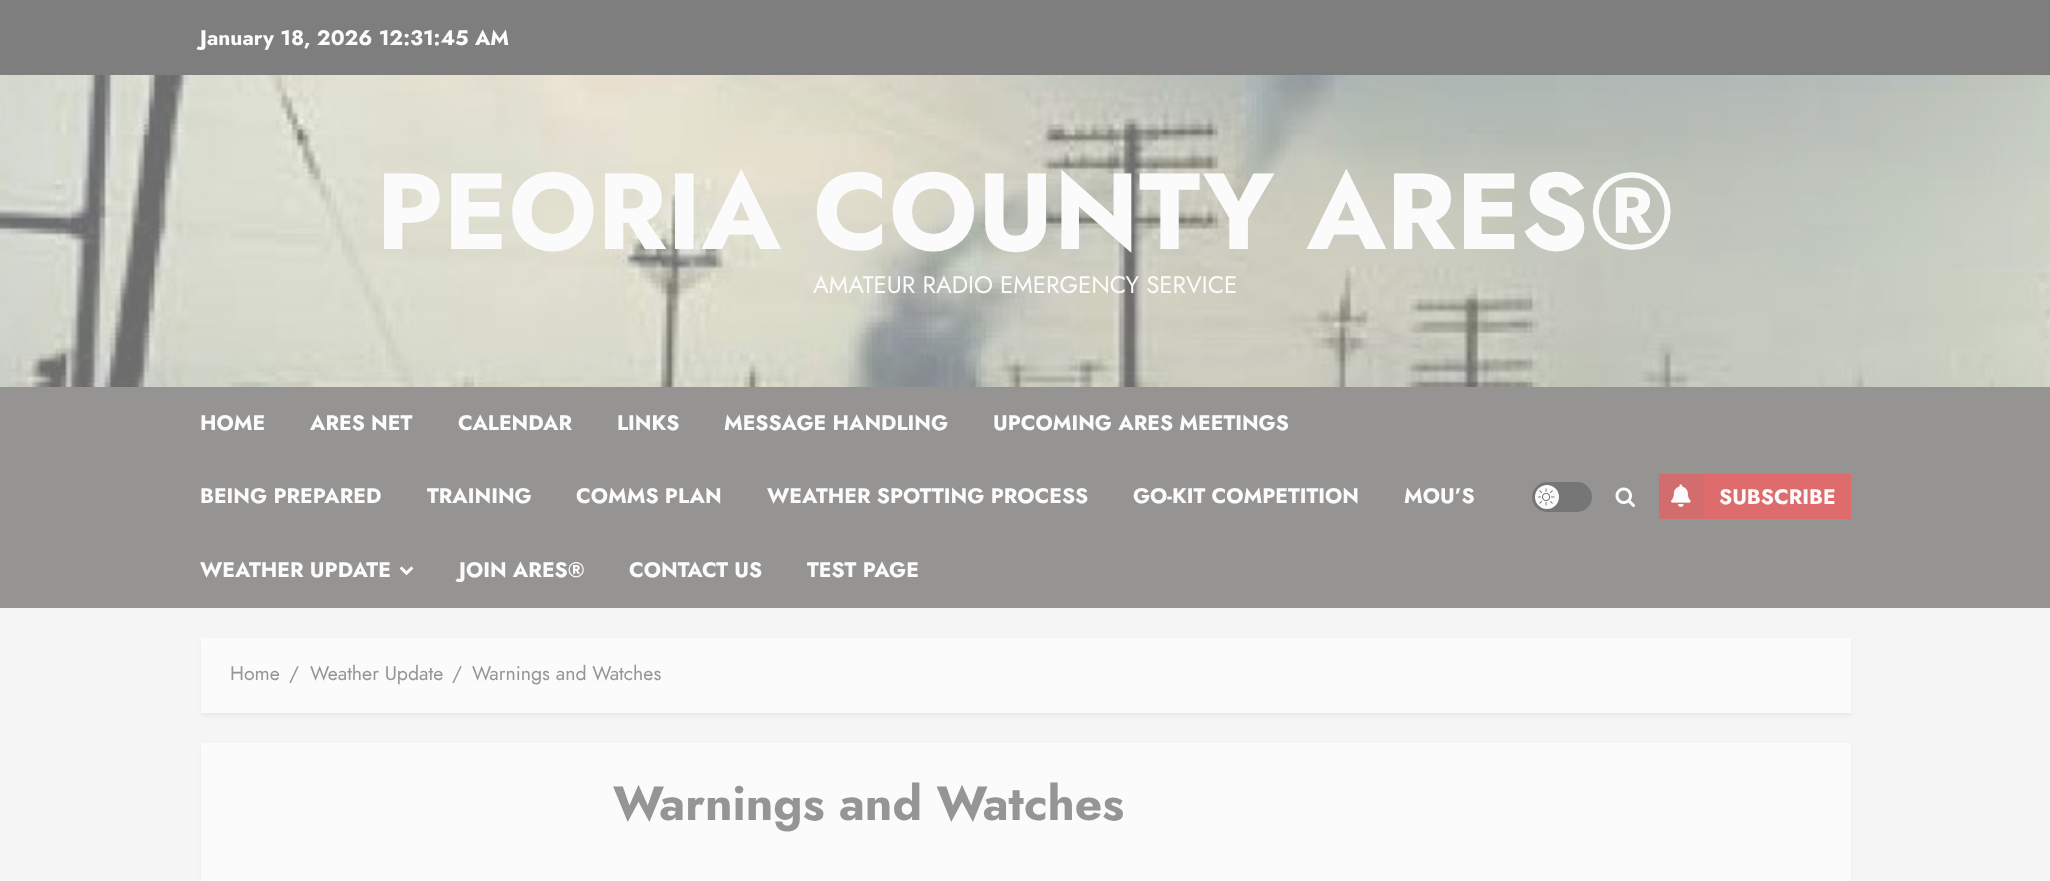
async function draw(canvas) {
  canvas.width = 2050
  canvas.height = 881
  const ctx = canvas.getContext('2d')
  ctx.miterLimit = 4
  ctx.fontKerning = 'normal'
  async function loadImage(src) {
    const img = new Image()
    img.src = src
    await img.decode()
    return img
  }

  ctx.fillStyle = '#f5f5f5'
  ctx.fillRect(0, 0, 2050, 881)
  ctx.fillStyle = '#7e7e7e'
  ctx.fillRect(0, 0, 2050, 75)
  ctx.font = 'bold 21px Jost'
  ctx.fillStyle = '#fbfbfb'
  ctx.fillText('January 18, 2026 12:31:45 AM', 200, 45)
  ctx.drawImage(await loadImage('image0.png'), 0, 75, 2050, 312)
  ctx.font = 'bold 108px Jost'
  ctx.fillText('PEORIA COUNTY ARES®', 376, 249)
  ctx.font = '24px Jost'
  ctx.fillText('AMATEUR RADIO EMERGENCY SERVICE', 813, 293)
  ctx.fillStyle = '#959493'
  ctx.fillRect(0, 387, 2050, 221)
  ctx.font = 'bold 21px Jost'
  ctx.fillStyle = '#fbfbfb'
  ctx.fillText('HOME', 200, 430)
  ctx.fillText('ARES NET', 310, 430)
  ctx.fillText('CALENDAR', 458, 430)
  ctx.fillText('LINKS', 617, 430)
  ctx.fillText('MESSAGE HANDLING', 724, 430)
  ctx.fillText('UPCOMING ARES MEETINGS', 993, 430)
  ctx.fillText('BEING PREPARED', 200, 503)
  ctx.fillText('TRAINING', 427, 503)
  ctx.fillText('COMMS PLAN', 576, 503)
  ctx.fillText('WEATHER SPOTTING PROCESS', 767, 503)
  ctx.fillText('GO-KIT COMPETITION', 1133, 503)
  ctx.fillText('MOU’S', 1404, 503)
  ctx.fillText('WEATHER UPDATE', 200, 577)
  ctx.drawImage(await loadImage('image1.png'), 399, 566, 15, 10)
  ctx.fillText('JOIN ARES®', 459, 577)
  ctx.fillText('CONTACT US', 629, 577)
  ctx.fillText('TEST PAGE', 807, 577)
  ctx.fillStyle = '#767676'
  ctx.beginPath()
  ctx.roundRect(1532, 482, 60, 30, 15)
  ctx.fill()
  ctx.fillStyle = '#fbfbfb'
  ctx.beginPath()
  ctx.arc(1547, 497, 12, 0, 2 * Math.PI)
  ctx.fill()
  ctx.drawImage(await loadImage('image2.png'), 1538, 488, 17, 18)
  ctx.drawImage(await loadImage('image3.png'), 1615, 487, 20, 20)
  ctx.fillStyle = '#de6c6c'
  ctx.fillRect(1704, 474, 147, 45)
  ctx.fillStyle = '#d36c6c'
  ctx.fillRect(1659, 474, 45, 45)
  ctx.drawImage(await loadImage('image4.png'), 1671, 484, 20, 23)
  ctx.fillStyle = '#fbfbfb'
  ctx.fillText('SUBSCRIBE', 1719, 504)
  ctx.fillStyle = '#6c6c6c14'
  ctx.filter = 'blur(1.5px)'
  ctx.beginPath()
  ctx.rect(201, 641, 1650, 75)
  ctx.fill()
  ctx.filter = 'none'
  ctx.fillStyle = '#fbfbfb'
  ctx.fillRect(201, 638, 1650, 75)
  ctx.font = '19.5px Jost'
  ctx.fillStyle = '#959595'
  ctx.fillText('Home', 230, 680)
  ctx.fillText('/', 289, 680)
  ctx.fillText('Weather Update', 310, 680)
  ctx.fillText('/', 452, 680)
  ctx.fillText('Warnings and Watches', 472, 680)
  ctx.fillStyle = '#6c6c6c14'
  ctx.filter = 'blur(1.5px)'
  ctx.beginPath()
  ctx.rect(201, 746, 1650, 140)
  ctx.fill()
  ctx.filter = 'none'
  ctx.fillStyle = '#fbfbfb'
  ctx.fillRect(201, 743, 1650, 138)
  ctx.font = 'bold 48px Jost'
  ctx.fillStyle = '#959595'
  ctx.fillText('Warnings and Watches', 613, 820)
}

draw(document.querySelector('canvas'))
